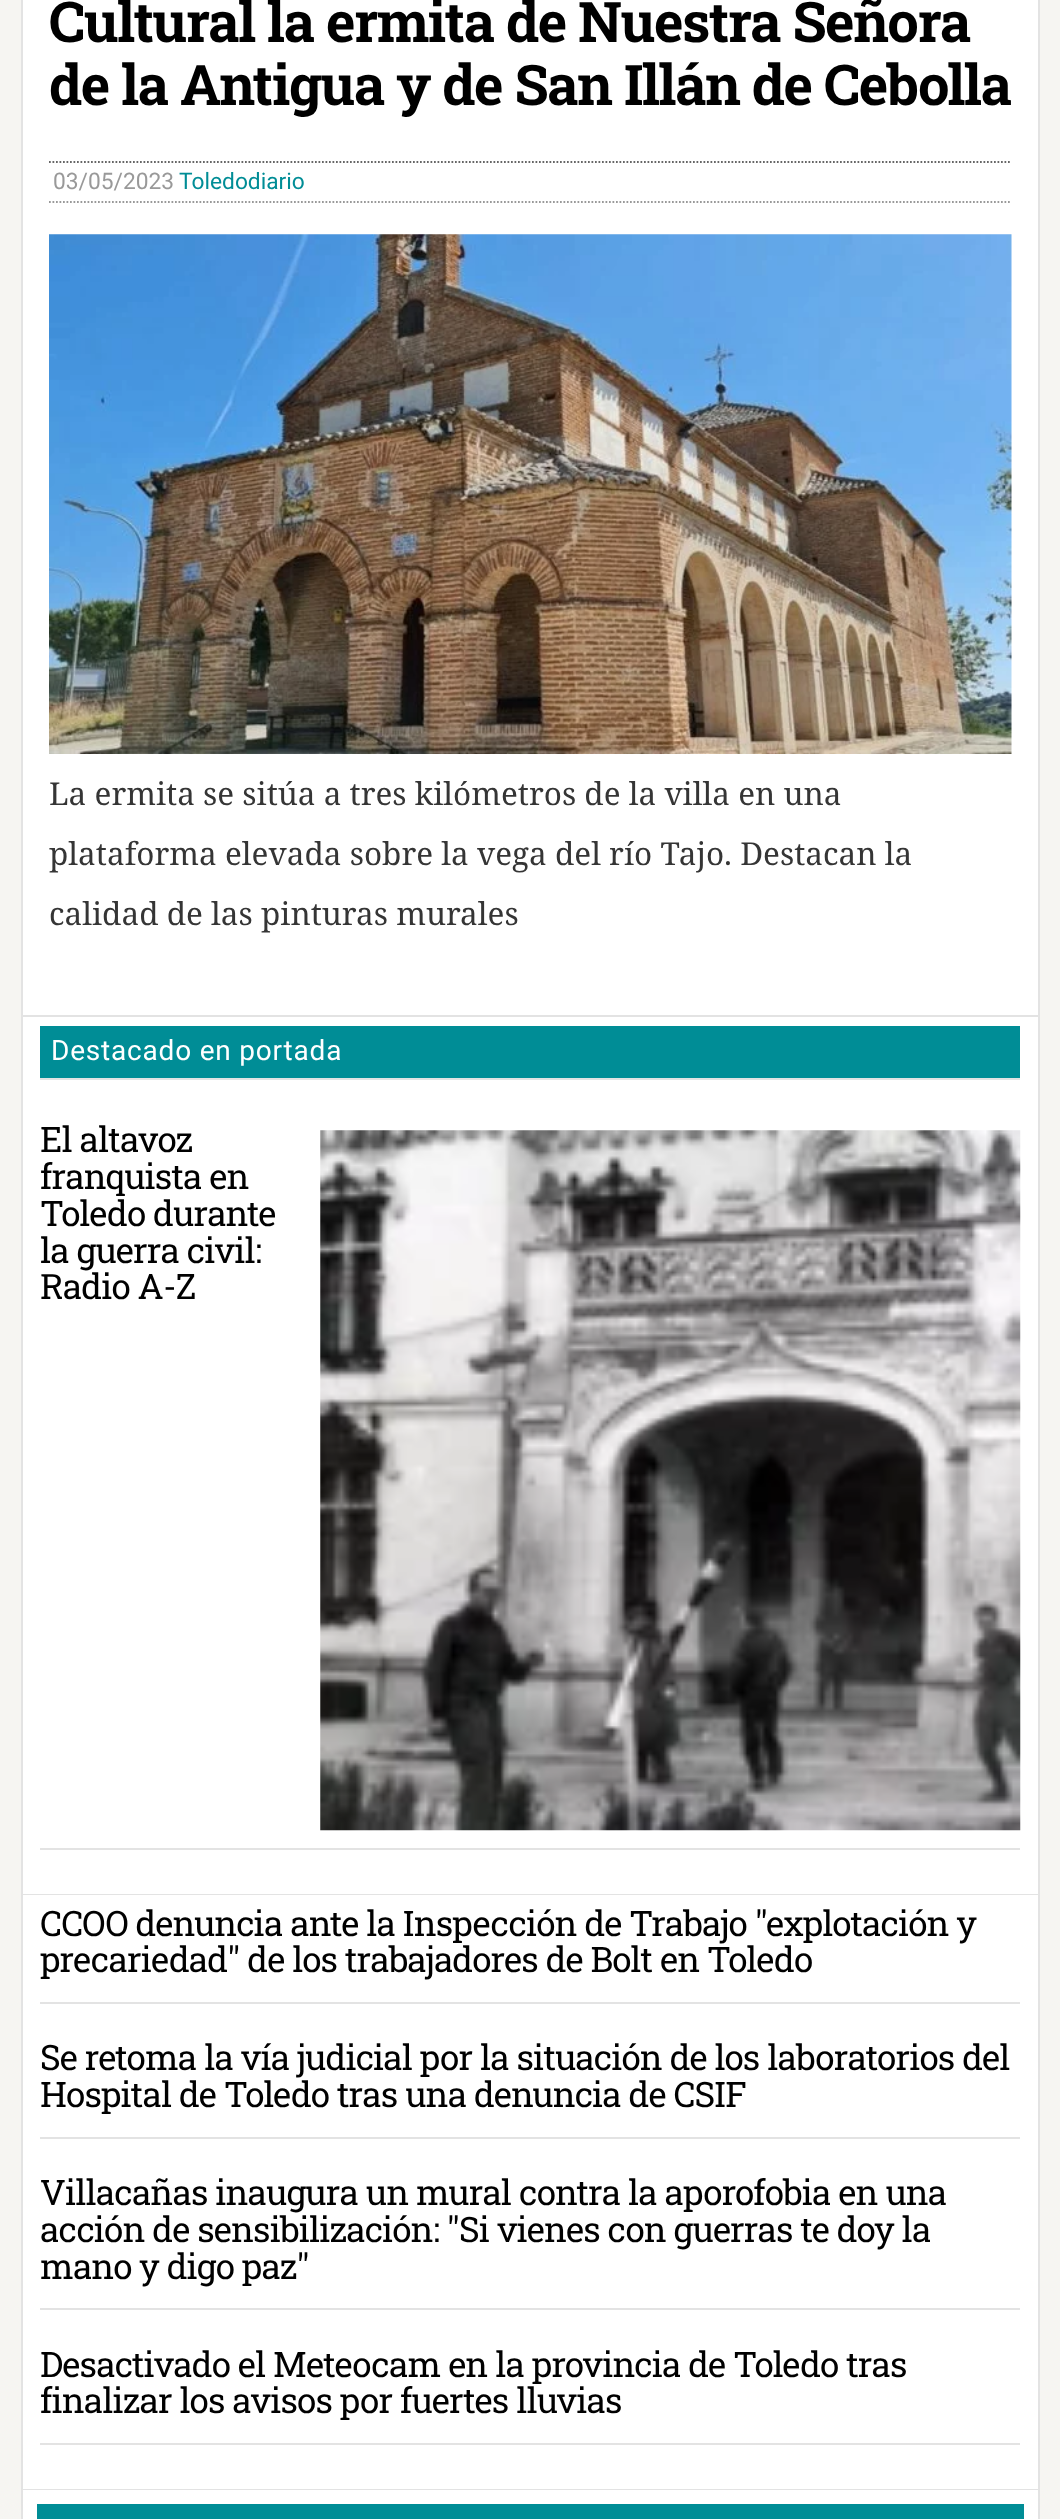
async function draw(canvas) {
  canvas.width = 1060
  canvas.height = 2519
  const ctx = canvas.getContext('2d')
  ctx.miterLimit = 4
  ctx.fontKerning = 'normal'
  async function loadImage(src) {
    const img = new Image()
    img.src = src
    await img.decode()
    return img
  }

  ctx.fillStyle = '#f6f5f2'
  ctx.fillRect(0, 0, 1060, 2519)
  ctx.fillStyle = '#fff'
  ctx.fillRect(23, 0, 1015, 1894)
  ctx.strokeStyle = '#e3e3e3'
  ctx.lineWidth = 2
  ctx.strokeRect(22, -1, 1017, 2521)
  ctx.fillStyle = '#e3e3e3'
  ctx.fillRect(23, 1015, 1015, 2)
  ctx.letterSpacing = '-1.4px'
  ctx.font = 'bold 56px Roboto Slab'
  ctx.fillStyle = '#000'
  ctx.fillText('Cultural la ermita de Nuestra Señora', 49, 42)
  ctx.fillText('de la Antigua y de San Illán de Cebolla', 49, 105)
  ctx.beginPath()
  ctx.moveTo(49, 162)
  ctx.lineTo(1011.5, 162)
  ctx.strokeStyle = '#666'
  ctx.lineWidth = 1.8
  ctx.setLineDash([1.75, 1.75])
  ctx.stroke()
  ctx.beginPath()
  ctx.moveTo(49, 202)
  ctx.lineTo(1011.5, 202)
  ctx.strokeStyle = '#999'
  ctx.stroke()
  ctx.letterSpacing = '0px'
  ctx.font = '22.75px Roboto'
  ctx.fillStyle = '#999'
  ctx.fillText('03/05/2023', 53, 189)
  ctx.fillStyle = '#008d96'
  ctx.fillText('Toledodiario', 179, 189)
  ctx.drawImage(await loadImage('image0.png'), 49, 234, 963, 520)
  ctx.font = '31.5px Noto Serif'
  ctx.fillStyle = '#353535'
  ctx.fillText('La ermita se sitúa a tres kilómetros de la villa en una', 49, 805)
  ctx.fillText('plataforma elevada sobre la vega del río Tajo. Destacan la', 49, 865)
  ctx.fillText('calidad de las pinturas murales', 49, 925)
  ctx.fillStyle = '#e3e3e3'
  ctx.fillRect(23, 1894, 1015, 1)
  ctx.fillStyle = '#008d96'
  ctx.fillRect(40, 1026, 980, 52)
  ctx.fillStyle = '#e3e3e3'
  ctx.fillRect(40, 1078, 980, 2)
  ctx.letterSpacing = '0.8px'
  ctx.font = '28px Roboto'
  ctx.fillStyle = '#fff'
  ctx.fillText('Destacado en portada', 51, 1060)
  ctx.fillStyle = '#e3e3e3'
  ctx.fillRect(40, 1848, 980, 2)
  ctx.letterSpacing = '-0.88px'
  ctx.font = '35px Roboto Slab'
  ctx.fillStyle = '#000'
  ctx.fillText('El altavoz', 40, 1152)
  ctx.fillText('franquista en', 40, 1189)
  ctx.fillText('Toledo durante', 40, 1226)
  ctx.fillText('la guerra civil:', 40, 1263)
  ctx.fillText('Radio A-Z', 40, 1299)
  ctx.drawImage(await loadImage('image1.png'), 320, 1130, 701, 701)
  ctx.fillStyle = '#fff'
  ctx.fillRect(23, 1895, 1015, 594)
  ctx.fillStyle = '#e3e3e3'
  ctx.fillRect(23, 2489, 1015, 1)
  ctx.fillRect(40, 2002, 980, 2)
  ctx.fillStyle = '#000'
  ctx.fillText('CCOO denuncia ante la Inspección de Trabajo "explotación y', 40, 1936)
  ctx.fillText('precariedad" de los trabajadores de Bolt en Toledo', 40, 1972)
  ctx.fillStyle = '#e3e3e3'
  ctx.fillRect(40, 2137, 980, 2)
  ctx.fillStyle = '#000'
  ctx.fillText('Se retoma la vía judicial por la situación de los laboratorios del', 40, 2070)
  ctx.fillText('Hospital de Toledo tras una denuncia de CSIF', 40, 2107)
  ctx.fillStyle = '#e3e3e3'
  ctx.fillRect(40, 2308, 980, 2)
  ctx.fillStyle = '#000'
  ctx.fillText('Villacañas inaugura un mural contra la aporofobia en una', 40, 2205)
  ctx.fillText('acción de sensibilización: "Si vienes con guerras te doy la', 40, 2242)
  ctx.fillText('mano y digo paz"', 40, 2279)
  ctx.fillStyle = '#e3e3e3'
  ctx.fillRect(40, 2443, 980, 2)
  ctx.fillStyle = '#000'
  ctx.fillText('Desactivado el Meteocam en la provincia de Toledo tras', 40, 2377)
  ctx.fillText('finalizar los avisos por fuertes lluvias', 40, 2413)
  ctx.fillStyle = '#fff'
  ctx.fillRect(23, 2490, 1015, 29)
  ctx.fillStyle = '#008d96'
  ctx.fillRect(37, 2504, 987, 15)
}

draw(document.querySelector('canvas'))
